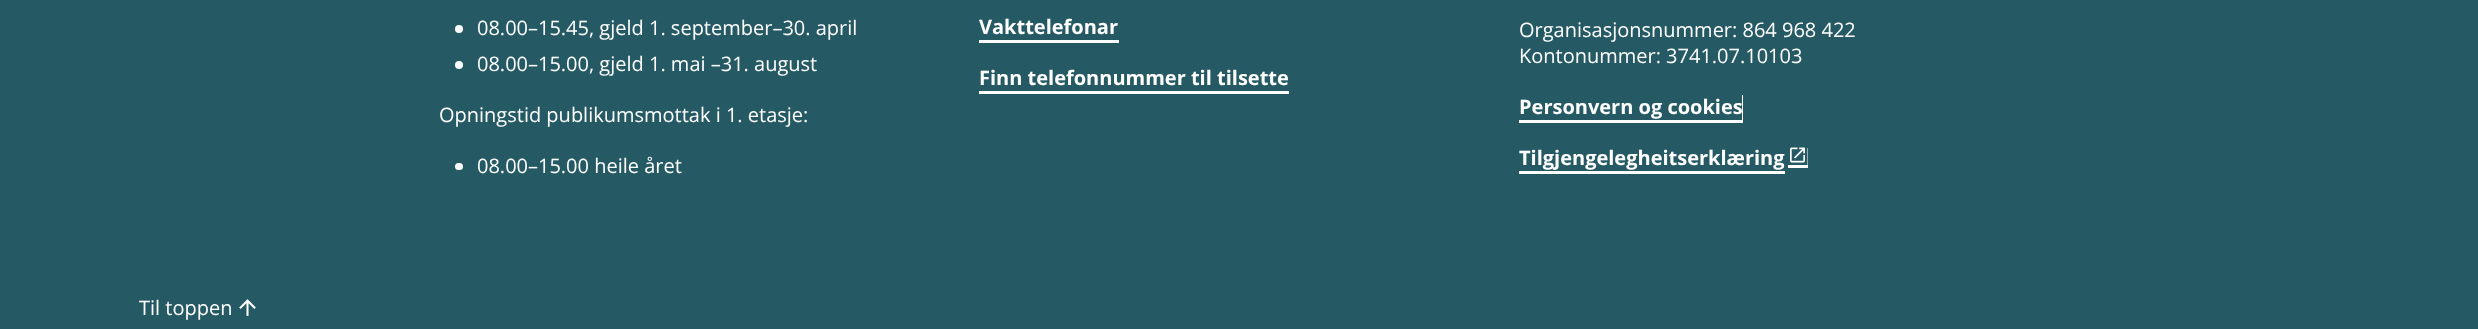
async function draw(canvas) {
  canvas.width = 2478
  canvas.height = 329
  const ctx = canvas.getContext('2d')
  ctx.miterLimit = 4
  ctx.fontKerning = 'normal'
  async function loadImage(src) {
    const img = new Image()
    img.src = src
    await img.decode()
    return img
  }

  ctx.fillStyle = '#255a64'
  ctx.fillRect(0, 0, 2478, 329)
  ctx.fillStyle = '#fff'
  ctx.beginPath()
  ctx.arc(459, 29, 4, 0, 2 * Math.PI)
  ctx.fill()
  ctx.font = '20px Open Sans'
  ctx.fillText('08.00–15.45, gjeld 1. september–30. april', 477, 35)
  ctx.beginPath()
  ctx.arc(459, 65, 4, 0, 2 * Math.PI)
  ctx.fill()
  ctx.fillText('08.00–15.00, gjeld 1. mai –31. august', 477, 71)
  ctx.fillText('Opningstid publikumsmottak i 1. etasje:', 439, 122)
  ctx.beginPath()
  ctx.roundRect(455, 163, 8, 7, 3.5)
  ctx.fill()
  ctx.fillText('08.00–15.00 heile året', 477, 173)
  ctx.font = 'bold 20px Open Sans'
  ctx.fillText('Vakttelefonar', 979, 34)
  ctx.beginPath()
  ctx.moveTo(979, 40)
  ctx.lineTo(979, 43)
  ctx.lineTo(1119, 43)
  ctx.lineTo(1119, 15)
  ctx.lineTo(1119, 40)
  ctx.closePath()
  ctx.fill()
  ctx.fillText('Finn telefonnummer til tilsette', 979, 85)
  ctx.beginPath()
  ctx.moveTo(979, 91)
  ctx.lineTo(979, 94)
  ctx.lineTo(1289, 94)
  ctx.lineTo(1289, 66)
  ctx.lineTo(1289, 91)
  ctx.closePath()
  ctx.fill()
  ctx.font = '20px Open Sans'
  ctx.fillText('Organisasjonsnummer: 864 968 422', 1519, 37)
  ctx.fillText('Kontonummer: 3741.07.10103', 1519, 63)
  ctx.beginPath()
  ctx.moveTo(1519, 120)
  ctx.lineTo(1519, 123)
  ctx.lineTo(1743, 123)
  ctx.lineTo(1743, 95)
  ctx.lineTo(1742, 95)
  ctx.lineTo(1742, 120)
  ctx.closePath()
  ctx.fill()
  ctx.font = 'bold 20px Open Sans'
  ctx.fillText('Personvern og cookies', 1519, 114)
  ctx.fillRect(1519, 171, 266, 3)
  ctx.beginPath()
  ctx.moveTo(1788, 165)
  ctx.lineTo(1788, 168)
  ctx.lineTo(1808, 168)
  ctx.lineTo(1808, 148)
  ctx.lineTo(1807.5, 148)
  ctx.lineTo(1807.5, 165)
  ctx.closePath()
  ctx.fill()
  ctx.fillText('Tilgjengelegheitserklæring', 1519, 165)
  ctx.drawImage(await loadImage('image0.png'), 1790, 147, 15, 16)
  ctx.font = '20px Open Sans'
  ctx.fillText('Til toppen', 139, 315)
  ctx.drawImage(await loadImage('image1.png'), 239, 299, 17, 17)
}

draw(document.querySelector('canvas'))
